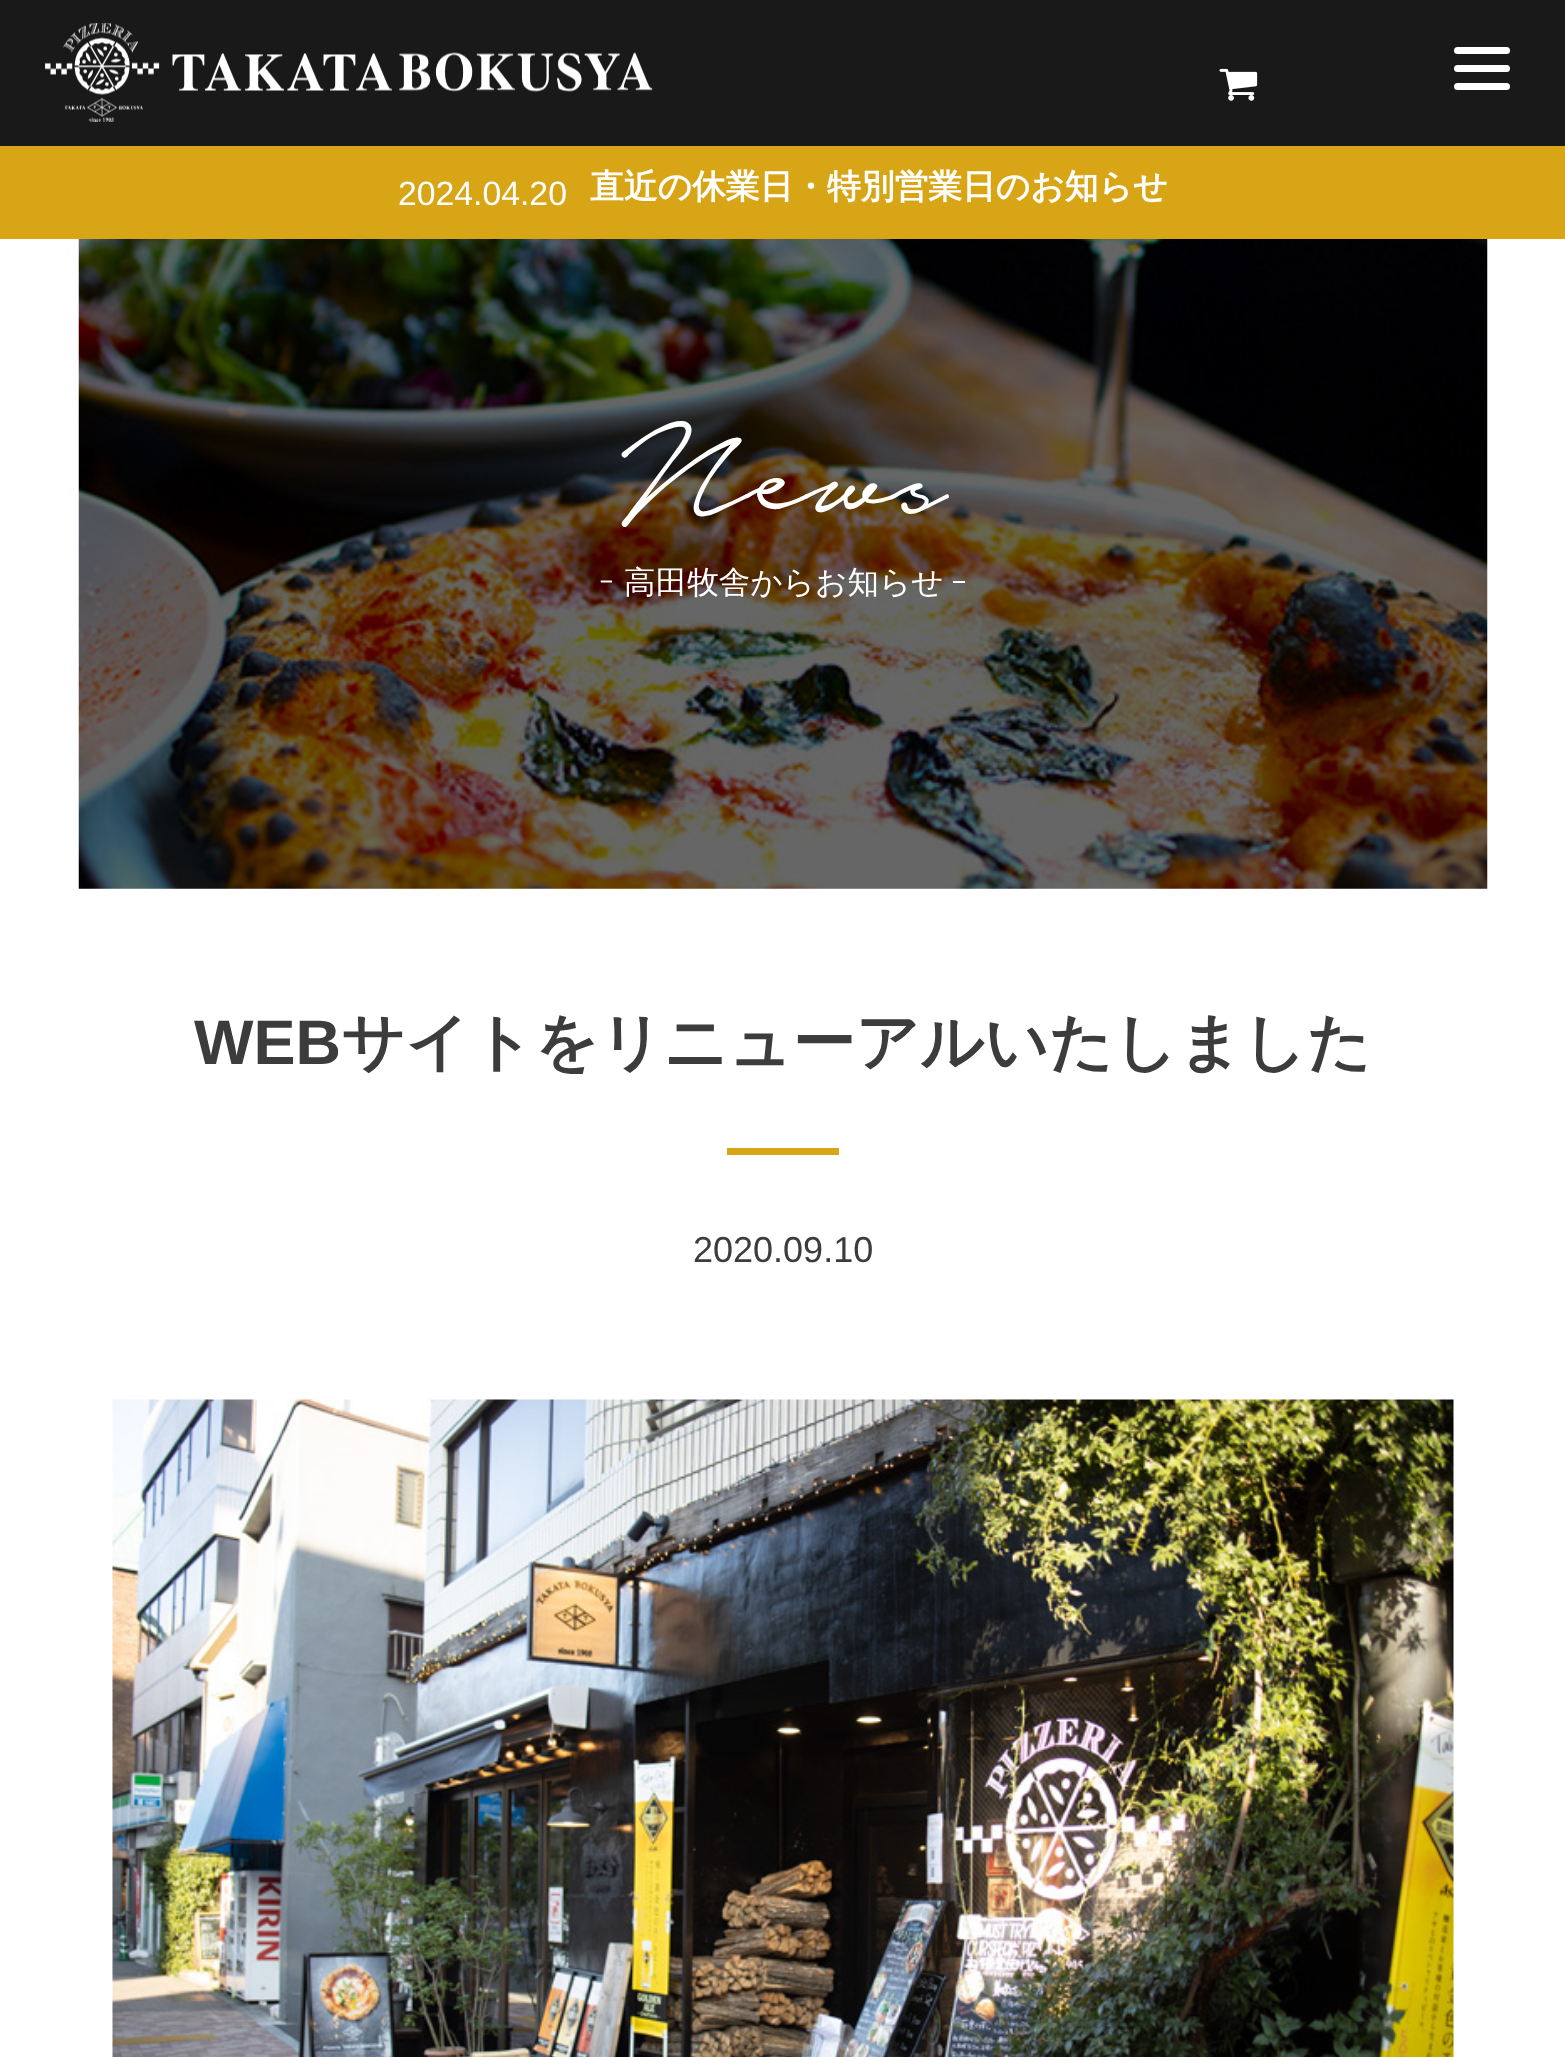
async function draw(canvas) {
  canvas.width = 1565
  canvas.height = 2057
  const ctx = canvas.getContext('2d')
  ctx.miterLimit = 4
  ctx.fontKerning = 'normal'
  async function loadImage(src) {
    const img = new Image()
    img.src = src
    await img.decode()
    return img
  }

  ctx.fillStyle = '#fff'
  ctx.fillRect(0, 0, 1565, 2057)
  ctx.fillStyle = '#191919'
  ctx.fillRect(0, 0, 1565, 146)
  ctx.drawImage(await loadImage('image0.png'), 45, 23, 608, 99)
  ctx.drawImage(await loadImage('image1.png'), 1219, 68, 39, 33)
  ctx.fillStyle = '#fff'
  ctx.beginPath()
  ctx.roundRect(1454, 47, 56, 7, 3.5)
  ctx.fill()
  ctx.beginPath()
  ctx.roundRect(1454, 65, 56, 7, 3.5)
  ctx.fill()
  ctx.beginPath()
  ctx.roundRect(1454, 83, 56, 7, 3.5)
  ctx.fill()
  ctx.fillStyle = '#d8a516'
  ctx.fillRect(0, 146, 1565, 93)
  ctx.font = '33.75px Liberation Sans'
  ctx.fillStyle = '#fff'
  ctx.fillText('2024.04.20', 398, 205)
  ctx.font = 'bold 33.75px WenQuanYi Zen Hei'
  ctx.fillText('直近の休業日・特別営業日のお知らせ', 590, 198)
  ctx.drawImage(await loadImage('image2.png'), 78, 239, 1410, 650)
  ctx.font = '169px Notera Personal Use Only'
  ctx.fillText('News', 620, 509)
  ctx.beginPath()
  ctx.moveTo(600.5, 580.5)
  ctx.lineTo(612, 580.5)
  ctx.lineTo(612, 582.5)
  ctx.lineTo(601, 582.5)
  ctx.closePath()
  ctx.fill()
  ctx.font = '500 31.6px WenQuanYi Zen Hei'
  ctx.fillText('高田牧舎からお知らせ', 624, 593)
  ctx.fillRect(953, 581, 12, 2)
  ctx.font = 'bold 63px Liberation Sans'
  ctx.fillStyle = '#3c3c3c'
  ctx.fillText('WEB', 194, 1064)
  ctx.font = 'bold 63px WenQuanYi Zen Hei'
  ctx.fillText('サイトをリニューアルいたしました', 341, 1064)
  ctx.fillStyle = '#d8a516'
  ctx.fillRect(727, 1148, 112, 7)
  ctx.font = '36px Liberation Sans'
  ctx.fillStyle = '#3c3c3c'
  ctx.fillText('2020.09.10', 693, 1262)
  ctx.drawImage(await loadImage('image3.png'), 112, 1399, 1342, 658)
}

draw(document.querySelector('canvas'))
